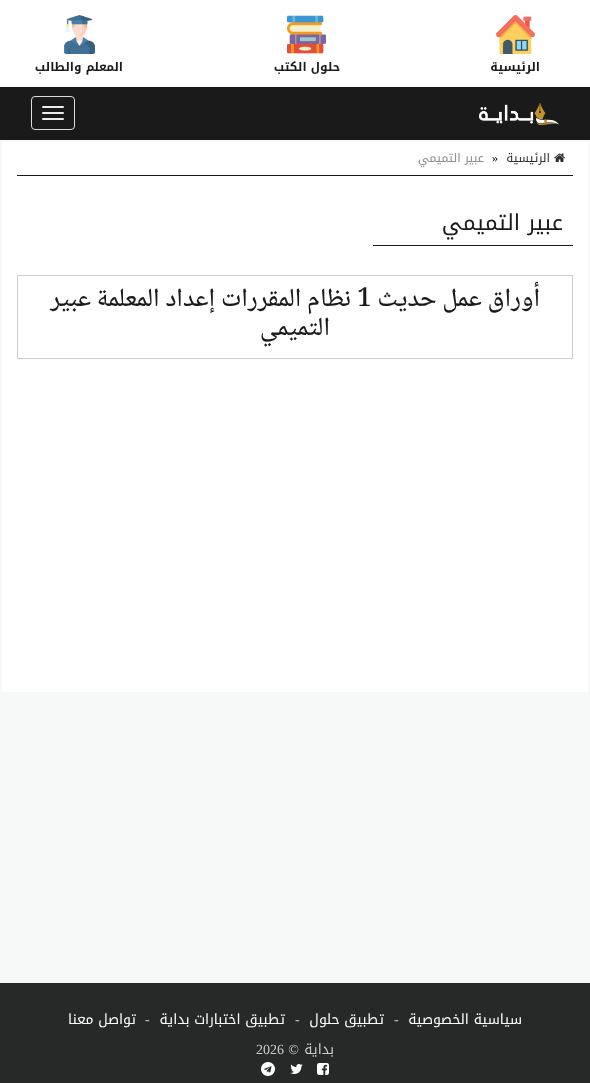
async function draw(canvas) {
  canvas.width = 590
  canvas.height = 1083
  const ctx = canvas.getContext('2d')
  ctx.miterLimit = 4
  ctx.fontKerning = 'normal'
  async function loadImage(src) {
    const img = new Image()
    img.src = src
    await img.decode()
    return img
  }

  ctx.fillStyle = '#f7f9f9'
  ctx.fillRect(0, 0, 590, 1083)
  ctx.fillStyle = '#fff'
  ctx.fillRect(0, 0, 590, 87)
  ctx.drawImage(await loadImage('image0.png'), 496, 15, 39, 39)
  ctx.direction = 'rtl'
  ctx.font = 'bold 12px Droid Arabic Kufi'
  ctx.fillStyle = '#1a1a1a'
  ctx.fillText('الرئيسية', 540, 71)
  ctx.drawImage(await loadImage('image1.png'), 287, 15, 39, 39)
  ctx.fillText('حلول الكتب', 340, 71)
  ctx.drawImage(await loadImage('image2.png'), 63, 15, 33, 39)
  ctx.fillText('المعلم والطالب', 123, 71)
  ctx.fillRect(1, 88, 588, 50)
  ctx.fillRect(0, 87, 590, 1)
  ctx.fillRect(589, 87, 1, 53)
  ctx.fillRect(0, 138, 590, 2)
  ctx.fillRect(0, 87, 1, 53)
  ctx.drawImage(await loadImage('image3.png'), 479, 103, 80, 22)
  ctx.beginPath()
  ctx.roundRect(31.5, 96.5, 43, 33, 3.5)
  ctx.strokeStyle = '#ddd'
  ctx.stroke()
  ctx.fillStyle = '#ececec'
  ctx.beginPath()
  ctx.roundRect(42, 106, 22, 2, 1)
  ctx.fill()
  ctx.beginPath()
  ctx.roundRect(42, 112, 22, 2, 1)
  ctx.fill()
  ctx.beginPath()
  ctx.roundRect(42, 118, 22, 2, 1)
  ctx.fill()
  ctx.fillStyle = '#fff'
  ctx.fillRect(2, 142, 586, 550)
  ctx.fillStyle = '#1a1a1a'
  ctx.fillRect(17, 175, 556, 1)
  ctx.drawImage(await loadImage('image4.png'), 554, 153, 11, 9)
  ctx.font = '12px Droid Arabic Kufi'
  ctx.fillStyle = '#2d2d2d'
  ctx.fillText('الرئيسية', 550, 162)
  ctx.direction = 'ltr'
  ctx.font = '12px Liberation Serif'
  ctx.fillStyle = '#000'
  ctx.fillText('»', 492, 162)
  ctx.direction = 'rtl'
  ctx.font = '12px Droid Arabic Kufi'
  ctx.fillStyle = '#8e8e8e'
  ctx.fillText('عبير التميمي', 484, 162)
  ctx.font = '22px Droid Arabic Kufi'
  ctx.fillStyle = '#1a1a1a'
  ctx.fillText('عبير التميمي', 563, 230)
  ctx.fillRect(373, 245, 200, 1)
  ctx.strokeStyle = '#ccc'
  ctx.strokeRect(17.5, 275.5, 555, 83)
  ctx.font = '500 26px Noto Naskh Arabic'
  ctx.fillText('أوراق عمل حديث', 540, 306)
  ctx.direction = 'ltr'
  ctx.fillText('1', 357, 306)
  ctx.direction = 'rtl'
  ctx.fillText('نظام المقررات إعداد المعلمة عبير', 351, 306)
  ctx.fillText('التميمي', 330, 335)
  ctx.fillStyle = '#262928'
  ctx.fillRect(0, 983, 590, 100)
  ctx.font = '14px Droid Arabic Kufi'
  ctx.fillStyle = '#fff'
  ctx.fillText('سياسية الخصوصية', 522, 1024)
  ctx.direction = 'ltr'
  ctx.font = '14px Liberation Serif'
  ctx.fillStyle = '#ccc'
  ctx.fillText('-', 394, 1024)
  ctx.direction = 'rtl'
  ctx.font = '14px Droid Arabic Kufi'
  ctx.fillStyle = '#fff'
  ctx.fillText('تطبيق حلول', 384, 1024)
  ctx.direction = 'ltr'
  ctx.font = '14px Liberation Serif'
  ctx.fillStyle = '#ccc'
  ctx.fillText('-', 295, 1024)
  ctx.direction = 'rtl'
  ctx.font = '14px Droid Arabic Kufi'
  ctx.fillStyle = '#fff'
  ctx.fillText('تطبيق اختبارات بداية', 285, 1024)
  ctx.direction = 'ltr'
  ctx.font = '14px Liberation Serif'
  ctx.fillStyle = '#ccc'
  ctx.fillText('-', 145, 1024)
  ctx.direction = 'rtl'
  ctx.font = '14px Droid Arabic Kufi'
  ctx.fillStyle = '#fff'
  ctx.fillText('تواصل معنا', 136, 1024)
  ctx.fillStyle = '#ccc'
  ctx.fillText('بداية', 334, 1054)
  ctx.font = '14px Liberation Serif'
  ctx.fillText('©', 299, 1054)
  ctx.direction = 'ltr'
  ctx.fillText('2026', 256, 1054)
  ctx.drawImage(await loadImage('image5.png'), 317, 1063, 12, 12)
  ctx.drawImage(await loadImage('image6.png'), 290, 1064, 13, 10)
  ctx.drawImage(await loadImage('image7.png'), 261, 1062, 14, 14)
}

draw(document.querySelector('canvas'))
